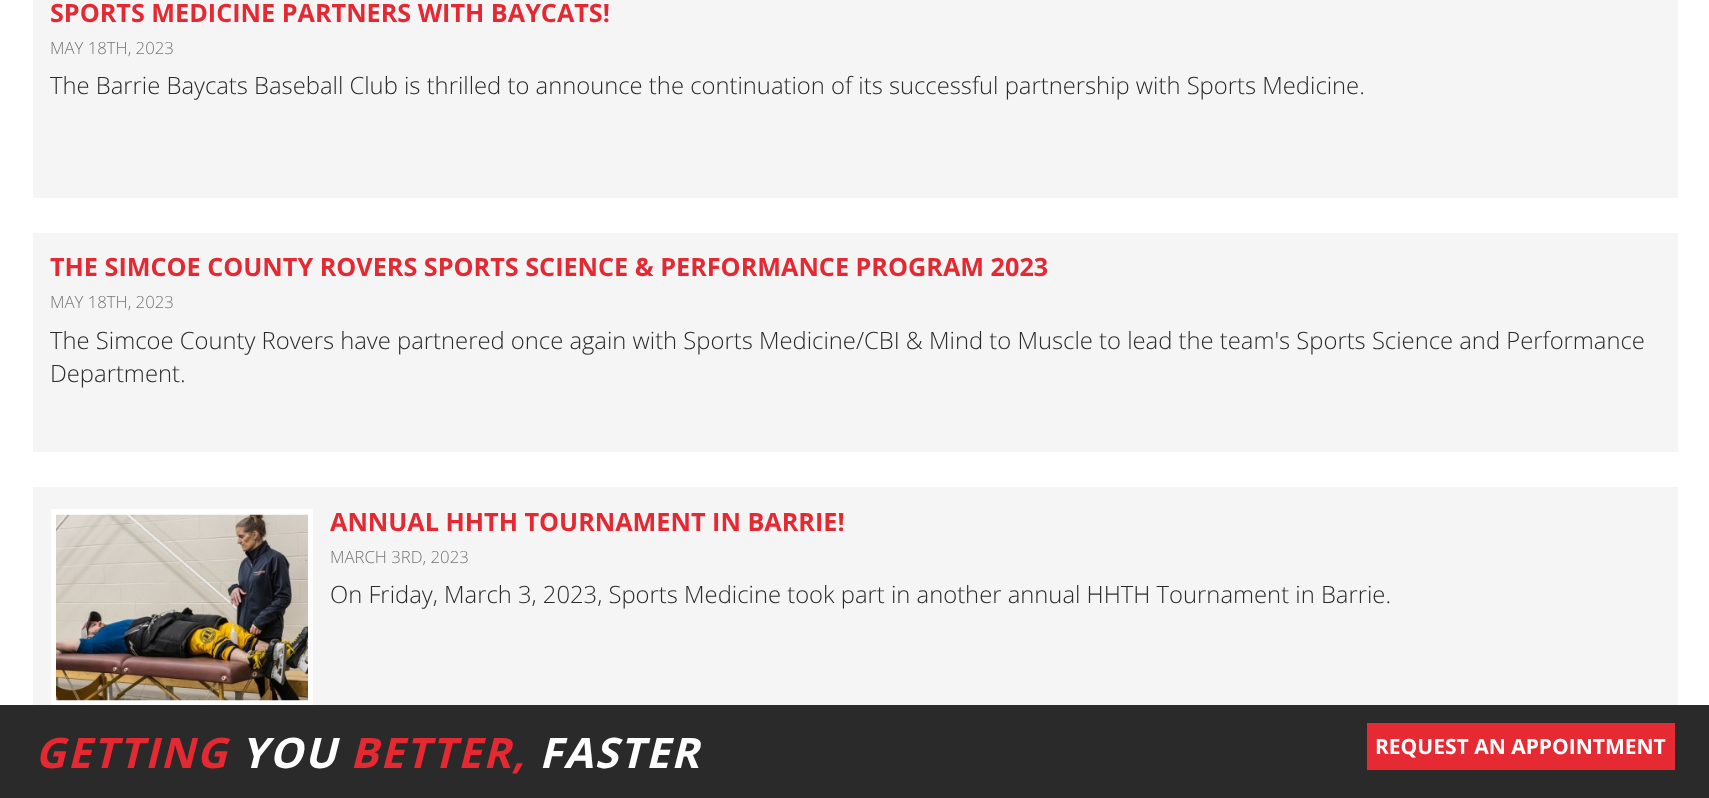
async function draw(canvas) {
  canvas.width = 1709
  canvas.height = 798
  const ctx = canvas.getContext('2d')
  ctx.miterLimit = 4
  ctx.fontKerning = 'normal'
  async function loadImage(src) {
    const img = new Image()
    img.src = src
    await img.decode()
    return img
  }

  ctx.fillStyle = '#fff'
  ctx.fillRect(0, 0, 1709, 798)
  ctx.fillStyle = '#f5f5f5'
  ctx.fillRect(33, 0, 1645, 198)
  ctx.font = 'bold 25.2px Open Sans'
  ctx.fillStyle = '#e52933'
  ctx.fillText('SPORTS MEDICINE PARTNERS WITH BAYCATS!', 50, 22)
  ctx.font = '300 16.75px Open Sans'
  ctx.fillStyle = '#777474'
  ctx.fillText('MAY 18TH, 2023', 50, 54)
  ctx.font = '300 23.8px Open Sans'
  ctx.fillStyle = '#2b2a2a'
  ctx.fillText('The Barrie Baycats Baseball Club is thrilled to announce the continuation of its successful partnership with Sports Medicine.', 50, 94)
  ctx.fillStyle = '#f5f5f5'
  ctx.fillRect(33, 233, 1645, 219)
  ctx.font = 'bold 25.2px Open Sans'
  ctx.fillStyle = '#e52933'
  ctx.fillText('THE SIMCOE COUNTY ROVERS SPORTS SCIENCE & PERFORMANCE PROGRAM 2023', 50, 276)
  ctx.font = '300 16.75px Open Sans'
  ctx.fillStyle = '#777474'
  ctx.fillText('MAY 18TH, 2023', 50, 308)
  ctx.font = '300 23.8px Open Sans'
  ctx.fillStyle = '#2b2a2a'
  ctx.fillText('The Simcoe County Rovers have partnered once again with Sports Medicine/CBI & Mind to Muscle to lead the team\'s Sports Science and Performance', 50, 349)
  ctx.fillText('Department.', 50, 382)
  ctx.fillStyle = '#f5f5f5'
  ctx.fillRect(33, 487, 1645, 218)
  ctx.fillStyle = '#fff'
  ctx.fillRect(51, 509, 262, 196)
  ctx.drawImage(await loadImage('image0.png'), 56, 514, 252, 187)
  ctx.font = 'bold 25.2px Open Sans'
  ctx.fillStyle = '#e52933'
  ctx.fillText('ANNUAL HHTH TOURNAMENT IN BARRIE!', 330, 531)
  ctx.font = '300 16.75px Open Sans'
  ctx.fillStyle = '#777474'
  ctx.fillText('MARCH 3RD, 2023', 330, 563)
  ctx.font = '300 23.8px Open Sans'
  ctx.fillStyle = '#2b2a2a'
  ctx.fillText('On Friday, March 3, 2023, Sports Medicine took part in another annual HHTH Tournament in Barrie.', 330, 603)
  ctx.fillRect(0, 705, 1709, 93)
  ctx.letterSpacing = '1.75px'
  ctx.font = 'italic bold 42px Open Sans'
  ctx.fillStyle = '#e52933'
  ctx.fillText('GETTING', 35, 768)
  ctx.fillStyle = '#fff'
  ctx.fillText('YOU', 241, 768)
  ctx.fillStyle = '#e52933'
  ctx.fillText('BETTER,', 350, 768)
  ctx.fillStyle = '#fff'
  ctx.fillText('FASTER', 539, 768)
  ctx.fillStyle = '#e62a33'
  ctx.fillRect(1367, 723, 308, 47)
  ctx.letterSpacing = '0px'
  ctx.font = 'bold 21px Open Sans'
  ctx.fillStyle = '#fff'
  ctx.fillText('REQUEST AN APPOINTMENT', 1375, 754)
}

draw(document.querySelector('canvas'))
